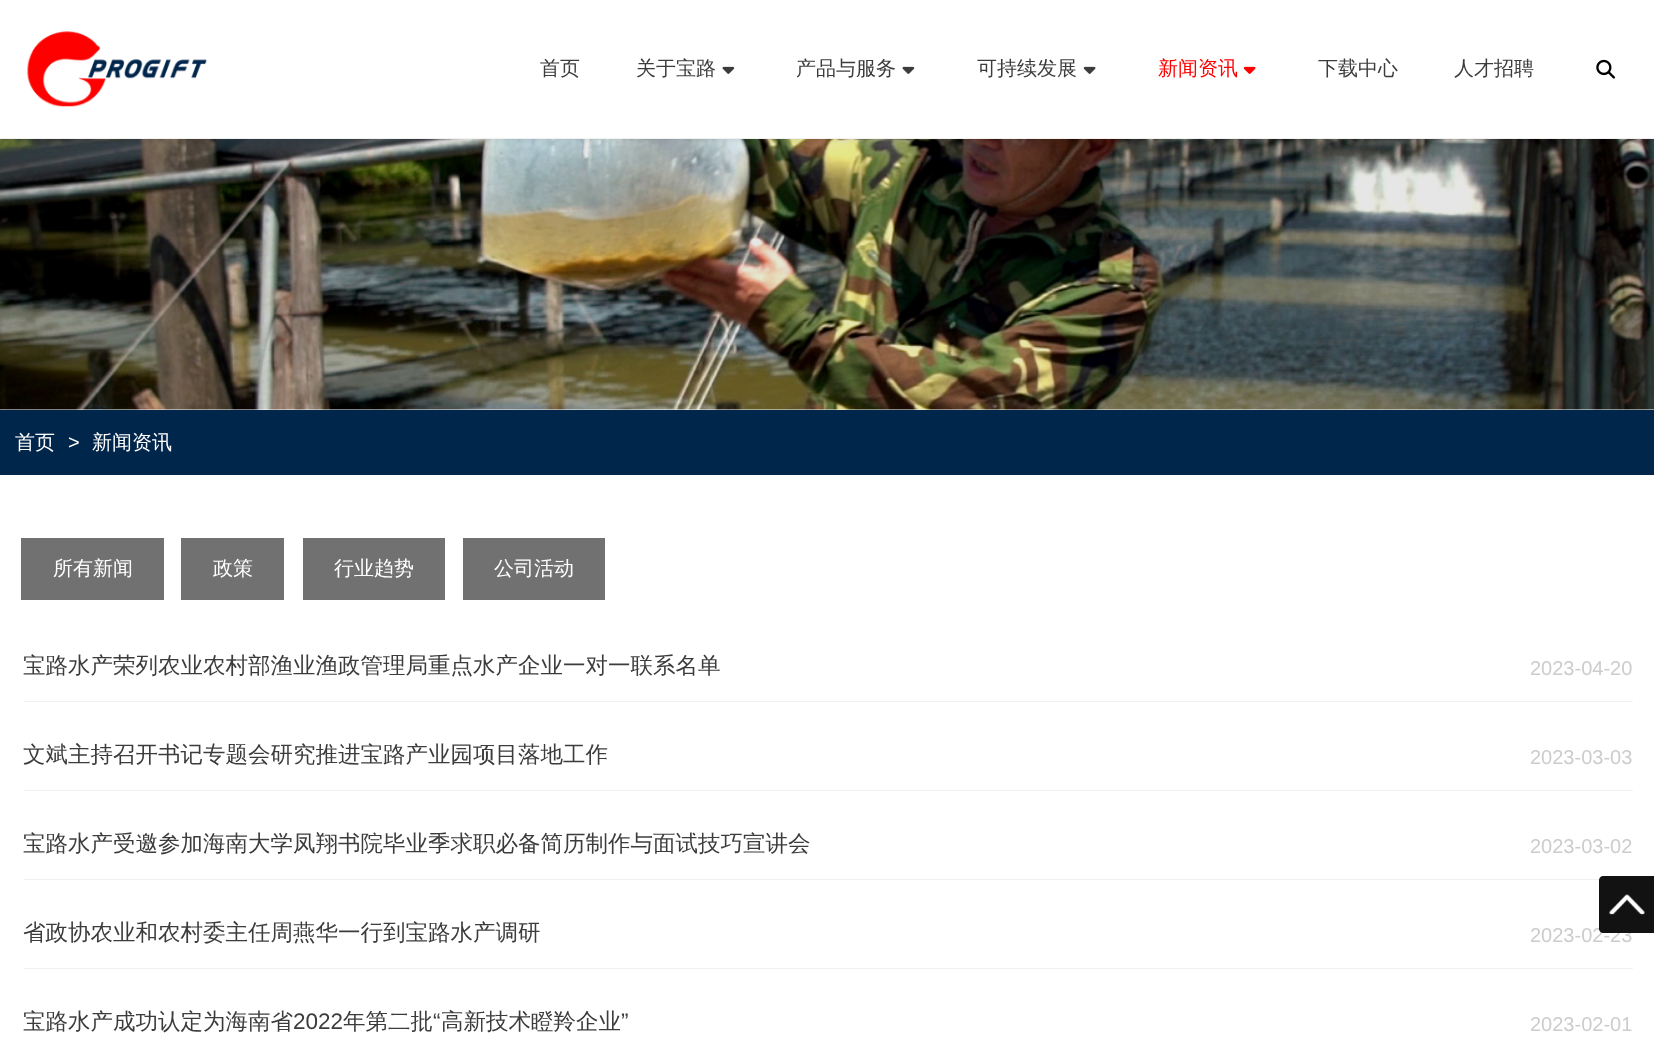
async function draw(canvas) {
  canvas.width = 1654
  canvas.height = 1037
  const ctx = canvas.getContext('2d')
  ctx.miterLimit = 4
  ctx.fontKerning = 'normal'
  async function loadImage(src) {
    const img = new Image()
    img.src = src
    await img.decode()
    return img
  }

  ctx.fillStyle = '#fff'
  ctx.fillRect(0, 0, 1654, 1037)
  ctx.drawImage(await loadImage('image5.png'), 0, 139, 1654, 271)
  ctx.fillStyle = '#1212121a'
  ctx.filter = 'blur(2px)'
  ctx.beginPath()
  ctx.rect(0, 1, 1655, 139)
  ctx.fill()
  ctx.filter = 'none'
  ctx.fillStyle = '#fff'
  ctx.fillRect(0, 0, 1654, 138)
  ctx.fillStyle = '#f1f1f1'
  ctx.fillRect(0, 138, 1654, 1)
  ctx.drawImage(await loadImage('image0.png'), 27, 31, 180, 76)
  ctx.font = '500 20px WenQuanYi Zen Hei'
  ctx.fillStyle = '#3c3c3c'
  ctx.fillText('首页', 540, 75)
  ctx.fillText('关于宝路', 636, 75)
  ctx.drawImage(await loadImage('image1.png'), 722, 66, 13, 8)
  ctx.fillText('产品与服务', 796, 75)
  ctx.drawImage(await loadImage('image1.png'), 902, 66, 13, 8)
  ctx.fillText('可持续发展', 977, 75)
  ctx.drawImage(await loadImage('image2.png'), 1083, 66, 13, 8)
  ctx.fillStyle = '#fe0000'
  ctx.fillText('新闻资讯', 1158, 75)
  ctx.drawImage(await loadImage('image3.png'), 1243, 66, 13, 8)
  ctx.fillStyle = '#3c3c3c'
  ctx.fillText('下载中心', 1318, 75)
  ctx.fillText('人才招聘', 1454, 75)
  ctx.drawImage(await loadImage('image4.png'), 1596, 59, 19, 20)
  ctx.fillStyle = '#00264c'
  ctx.fillRect(0, 410, 1654, 65)
  ctx.fillStyle = '#fff'
  ctx.fillText('首页', 15, 449)
  ctx.font = '20px Liberation Sans'
  ctx.fillText('>', 68, 449)
  ctx.font = '500 20px WenQuanYi Zen Hei'
  ctx.fillText('新闻资讯', 92, 449)
  ctx.fillStyle = '#717171'
  ctx.fillRect(21, 538, 143, 62)
  ctx.fillStyle = '#fff'
  ctx.fillText('所有新闻', 53, 575)
  ctx.fillStyle = '#717171'
  ctx.fillRect(181, 538, 103, 62)
  ctx.fillStyle = '#fff'
  ctx.fillText('政策', 213, 575)
  ctx.fillStyle = '#717171'
  ctx.fillRect(303, 538, 142, 62)
  ctx.fillStyle = '#fff'
  ctx.fillText('行业趋势', 334, 575)
  ctx.fillStyle = '#717171'
  ctx.fillRect(463, 538, 142, 62)
  ctx.fillStyle = '#fff'
  ctx.fillText('公司活动', 494, 575)
  ctx.fillStyle = '#f2f2f2'
  ctx.fillRect(24, 701, 1609, 1)
  ctx.font = '500 22.5px WenQuanYi Zen Hei'
  ctx.fillStyle = '#3c3c3c'
  ctx.fillText('宝路水产荣列农业农村部渔业渔政管理局重点水产企业一对一联系名单', 23, 673)
  ctx.font = '20px Liberation Sans'
  ctx.fillStyle = '#ccc'
  ctx.fillText('2023-04-20', 1530, 675)
  ctx.fillStyle = '#f2f2f2'
  ctx.fillRect(24, 790, 1609, 1)
  ctx.font = '500 22.5px WenQuanYi Zen Hei'
  ctx.fillStyle = '#3c3c3c'
  ctx.fillText('文斌主持召开书记专题会研究推进宝路产业园项目落地工作', 23, 762)
  ctx.font = '20px Liberation Sans'
  ctx.fillStyle = '#ccc'
  ctx.fillText('2023-03-03', 1530, 764)
  ctx.fillStyle = '#f2f2f2'
  ctx.fillRect(24, 879, 1576, 1)
  ctx.font = '500 22.5px WenQuanYi Zen Hei'
  ctx.fillStyle = '#3c3c3c'
  ctx.fillText('宝路水产受邀参加海南大学凤翔书院毕业季求职必备简历制作与面试技巧宣讲会', 23, 851)
  ctx.font = '20px Liberation Sans'
  ctx.fillStyle = '#ccc'
  ctx.fillText('2023-03-02', 1530, 853)
  ctx.fillStyle = '#f2f2f2'
  ctx.fillRect(24, 968, 1609, 1)
  ctx.font = '500 22.5px WenQuanYi Zen Hei'
  ctx.fillStyle = '#3c3c3c'
  ctx.fillText('省政协农业和农村委主任周燕华一行到宝路水产调研', 23, 940)
  ctx.font = '20px Liberation Sans'
  ctx.fillStyle = '#ccc'
  ctx.fillText('2023-02-23', 1530, 942)
  ctx.font = '500 22.5px WenQuanYi Zen Hei'
  ctx.fillStyle = '#3c3c3c'
  ctx.fillText('宝路水产成功认定为海南省', 23, 1029)
  ctx.font = '22.5px Liberation Sans'
  ctx.fillText('2022', 293, 1029)
  ctx.font = '500 22.5px WenQuanYi Zen Hei'
  ctx.fillText('年第二批', 343, 1029)
  ctx.font = '22.5px Liberation Sans'
  ctx.fillText('“', 433, 1029)
  ctx.font = '500 22.5px WenQuanYi Zen Hei'
  ctx.fillText('高新技术瞪羚企业', 441, 1029)
  ctx.font = '22.5px Liberation Sans'
  ctx.fillText('”', 621, 1029)
  ctx.font = '20px Liberation Sans'
  ctx.fillStyle = '#ccc'
  ctx.fillText('2023-02-01', 1530, 1031)
  ctx.fillStyle = '#121212'
  ctx.beginPath()
  ctx.moveTo(1603, 876)
  ctx.lineTo(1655, 876)
  ctx.lineTo(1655, 933)
  ctx.lineTo(1603, 933)
  ctx.bezierCurveTo(1601, 933, 1599, 931, 1599, 929)
  ctx.lineTo(1599, 880)
  ctx.bezierCurveTo(1599, 878, 1601, 876, 1603, 876)
  ctx.closePath()
  ctx.fill()
  ctx.drawImage(await loadImage('image6.png'), 1609, 894, 36, 21)
}

draw(document.querySelector('canvas'))
